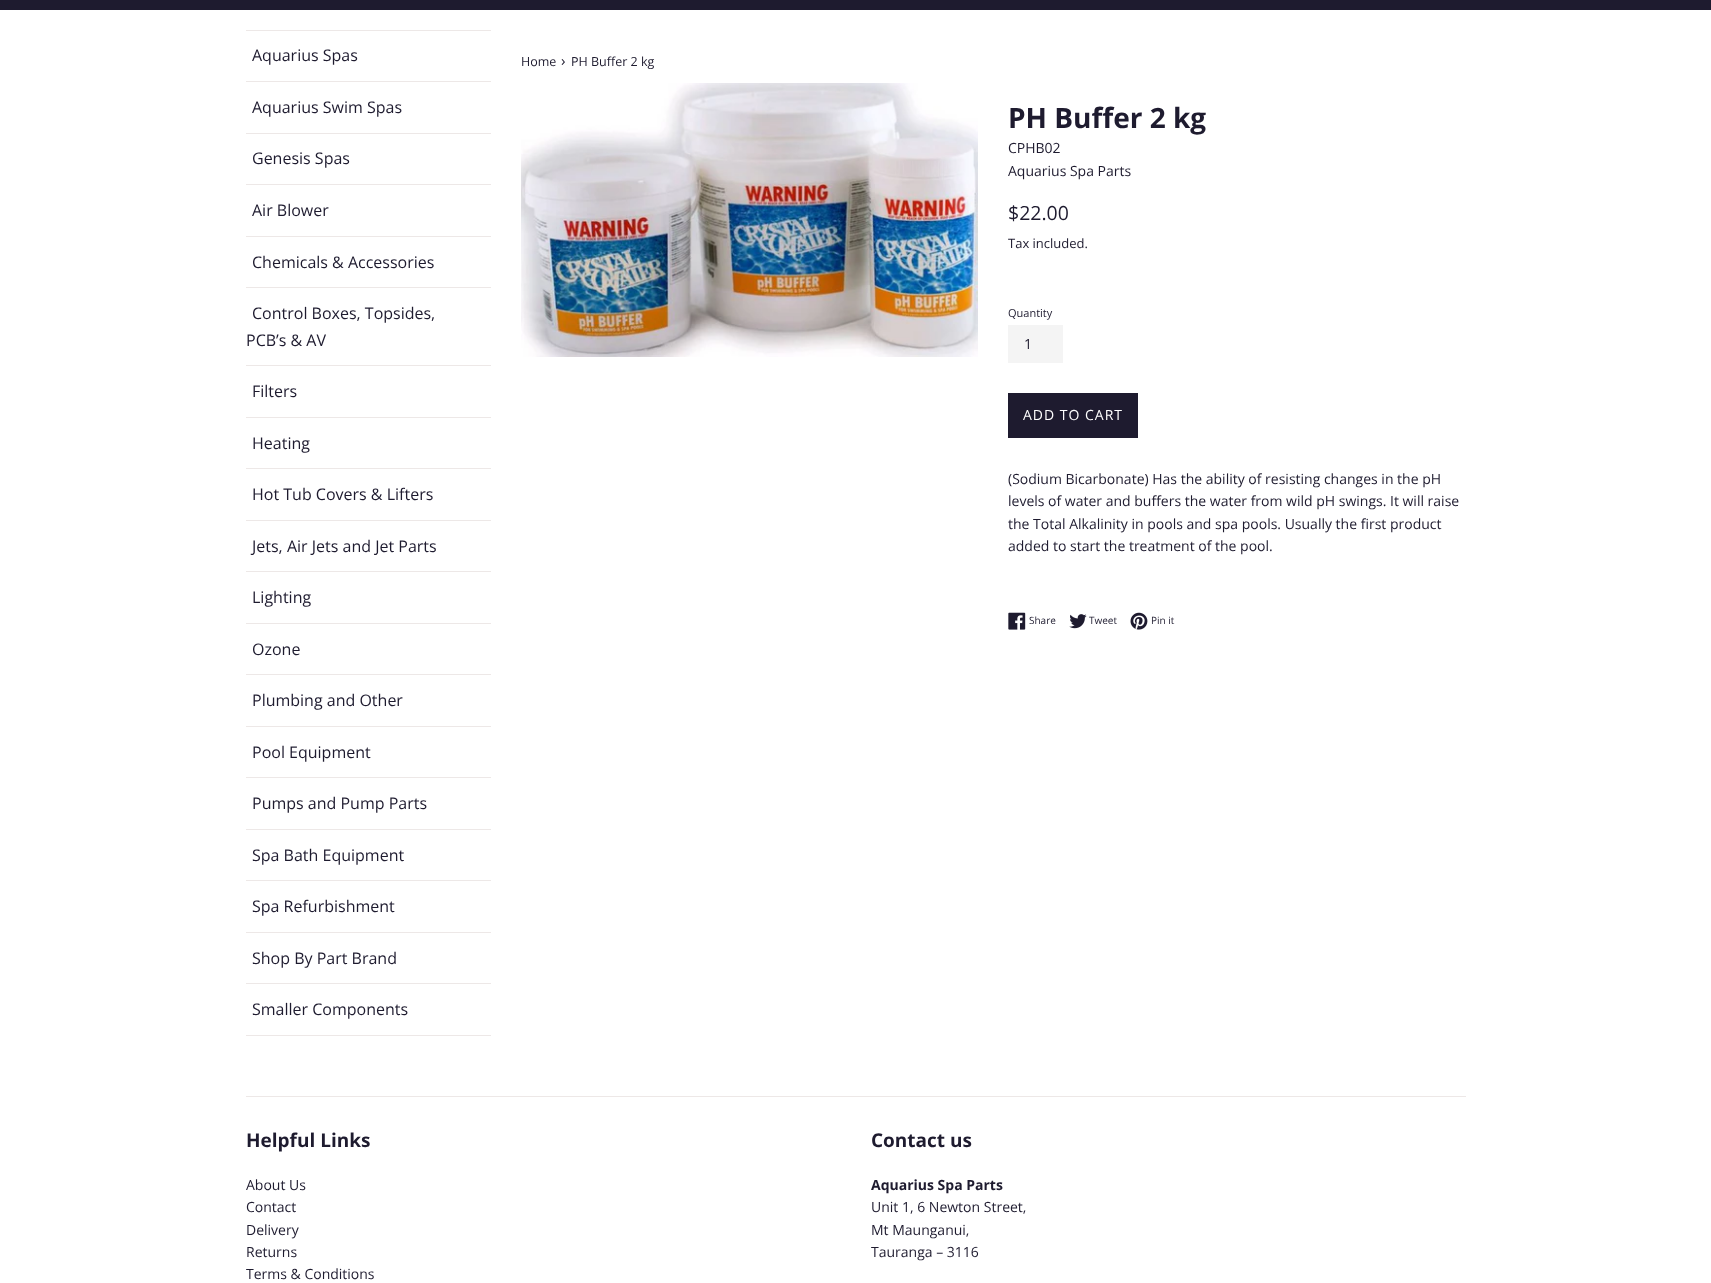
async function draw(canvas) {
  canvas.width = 1711
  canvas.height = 1283
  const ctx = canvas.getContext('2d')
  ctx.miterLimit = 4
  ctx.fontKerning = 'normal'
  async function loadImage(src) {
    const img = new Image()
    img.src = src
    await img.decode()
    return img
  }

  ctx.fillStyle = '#fff'
  ctx.fillRect(0, 0, 1711, 1283)
  ctx.fillStyle = '#1e1b2f'
  ctx.fillRect(0, 0, 1711, 10)
  ctx.fillStyle = '#ede8e7'
  ctx.fillRect(246, 30, 245, 1)
  ctx.fillRect(246, 81, 245, 1)
  ctx.font = '16px Open Sans'
  ctx.fillStyle = '#1e1b2f'
  ctx.fillText('Aquarius Spas', 252, 61)
  ctx.fillStyle = '#ede8e7'
  ctx.fillRect(246, 133, 245, 1)
  ctx.fillStyle = '#1e1b2f'
  ctx.fillText('Aquarius Swim Spas', 252, 113)
  ctx.fillStyle = '#ede8e7'
  ctx.fillRect(246, 184, 245, 1)
  ctx.fillStyle = '#1e1b2f'
  ctx.fillText('Genesis Spas', 252, 164)
  ctx.fillStyle = '#ede8e7'
  ctx.fillRect(246, 236, 245, 1)
  ctx.fillStyle = '#1e1b2f'
  ctx.fillText('Air Blower', 252, 216)
  ctx.fillStyle = '#ede8e7'
  ctx.fillRect(246, 287, 245, 1)
  ctx.fillStyle = '#1e1b2f'
  ctx.fillText('Chemicals & Accessories', 252, 268)
  ctx.fillStyle = '#ede8e7'
  ctx.fillRect(246, 365, 245, 1)
  ctx.fillStyle = '#1e1b2f'
  ctx.fillText('Control Boxes, Topsides,', 252, 319)
  ctx.fillText('PCB’s & AV', 246, 346)
  ctx.fillStyle = '#ede8e7'
  ctx.fillRect(246, 417, 245, 1)
  ctx.fillStyle = '#1e1b2f'
  ctx.fillText('Filters', 252, 397)
  ctx.fillStyle = '#ede8e7'
  ctx.fillRect(246, 468, 245, 1)
  ctx.fillStyle = '#1e1b2f'
  ctx.fillText('Heating', 252, 449)
  ctx.fillStyle = '#ede8e7'
  ctx.fillRect(246, 520, 245, 1)
  ctx.fillStyle = '#1e1b2f'
  ctx.fillText('Hot Tub Covers & Lifters', 252, 500)
  ctx.fillStyle = '#ede8e7'
  ctx.fillRect(246, 571, 245, 1)
  ctx.fillStyle = '#1e1b2f'
  ctx.fillText('Jets, Air Jets and Jet Parts', 252, 552)
  ctx.fillStyle = '#ede8e7'
  ctx.fillRect(246, 623, 245, 1)
  ctx.fillStyle = '#1e1b2f'
  ctx.fillText('Lighting', 252, 603)
  ctx.fillStyle = '#ede8e7'
  ctx.fillRect(246, 674, 245, 1)
  ctx.fillStyle = '#1e1b2f'
  ctx.fillText('Ozone', 252, 655)
  ctx.fillStyle = '#ede8e7'
  ctx.fillRect(246, 726, 245, 1)
  ctx.fillStyle = '#1e1b2f'
  ctx.fillText('Plumbing and Other', 252, 706)
  ctx.fillStyle = '#ede8e7'
  ctx.fillRect(246, 777, 245, 1)
  ctx.fillStyle = '#1e1b2f'
  ctx.fillText('Pool Equipment', 252, 758)
  ctx.fillStyle = '#ede8e7'
  ctx.fillRect(246, 829, 245, 1)
  ctx.fillStyle = '#1e1b2f'
  ctx.fillText('Pumps and Pump Parts', 252, 809)
  ctx.fillStyle = '#ede8e7'
  ctx.fillRect(246, 880, 245, 1)
  ctx.fillStyle = '#1e1b2f'
  ctx.fillText('Spa Bath Equipment', 252, 861)
  ctx.fillStyle = '#ede8e7'
  ctx.fillRect(246, 932, 245, 1)
  ctx.fillStyle = '#1e1b2f'
  ctx.fillText('Spa Refurbishment', 252, 912)
  ctx.fillStyle = '#ede8e7'
  ctx.fillRect(246, 983, 245, 1)
  ctx.fillStyle = '#1e1b2f'
  ctx.fillText('Shop By Part Brand', 252, 964)
  ctx.fillStyle = '#ede8e7'
  ctx.fillRect(246, 1035, 245, 1)
  ctx.fillStyle = '#1e1b2f'
  ctx.fillText('Smaller Components', 252, 1015)
  ctx.font = '12.5px Open Sans'
  ctx.fillText('Home', 521, 66)
  ctx.font = '15px Open Sans'
  ctx.fillText('›', 561, 66)
  ctx.font = '12.5px Open Sans'
  ctx.fillText('PH Buffer 2 kg', 571, 66)
  ctx.drawImage(await loadImage('image0.png'), 521, 83, 457, 274)
  ctx.font = 'bold 28px Open Sans'
  ctx.fillText('PH Buffer 2 kg', 1008, 128)
  ctx.font = '14px Open Sans'
  ctx.fillText('CPHB02', 1008, 153)
  ctx.fillText('Aquarius Spa Parts', 1008, 176)
  ctx.font = '19.5px Open Sans'
  ctx.fillText('$22.00', 1008, 220)
  ctx.font = '13px Open Sans'
  ctx.fillText('Tax included.', 1008, 248)
  ctx.font = '11px Open Sans'
  ctx.fillText('Quantity', 1008, 317)
  ctx.fillStyle = '#f4f4f4'
  ctx.fillRect(1008, 325, 55, 38)
  ctx.font = '14px Open Sans'
  ctx.fillStyle = '#1e1b2f'
  ctx.fillText('1', 1024, 349)
  ctx.fillRect(1008, 393, 130, 45)
  ctx.letterSpacing = '1px'
  ctx.fillStyle = '#fff'
  ctx.fillText('ADD TO CART', 1023, 420)
  ctx.letterSpacing = '0px'
  ctx.fillStyle = '#1e1b2f'
  ctx.fillText('(Sodium Bicarbonate) Has the ability of resisting changes in the pH', 1008, 484)
  ctx.fillText('levels of water and buffers the water from wild pH swings. It will raise', 1008, 506)
  ctx.fillText('the Total Alkalinity in pools and spa pools. Usually the first product', 1008, 529)
  ctx.fillText('added to start the treatment of the pool.', 1008, 551)
  ctx.drawImage(await loadImage('image1.png'), 1008, 612, 18, 18)
  ctx.font = '10px Open Sans'
  ctx.fillText('Share', 1029, 624)
  ctx.drawImage(await loadImage('image2.png'), 1069, 614, 18, 15)
  ctx.fillText('Tweet', 1089, 624)
  ctx.drawImage(await loadImage('image3.png'), 1130, 612, 18, 18)
  ctx.fillText('Pin it', 1151, 624)
  ctx.fillStyle = '#ede8e7'
  ctx.fillRect(246, 1096, 1220, 1)
  ctx.font = 'bold 19px Open Sans'
  ctx.fillStyle = '#1e1b2f'
  ctx.fillText('Helpful Links', 246, 1147)
  ctx.font = '14px Open Sans'
  ctx.fillText('About Us', 246, 1190)
  ctx.fillText('Contact', 246, 1212)
  ctx.fillText('Delivery', 246, 1235)
  ctx.fillText('Returns', 246, 1257)
  ctx.fillText('Terms & Conditions', 246, 1279)
  ctx.font = 'bold 19px Open Sans'
  ctx.fillText('Contact us', 871, 1147)
  ctx.font = 'bold 14px Open Sans'
  ctx.fillText('Aquarius Spa Parts', 871, 1190)
  ctx.font = '14px Open Sans'
  ctx.fillText('Unit 1, 6 Newton Street,', 871, 1212)
  ctx.fillText('Mt Maunganui,', 871, 1235)
  ctx.fillText('Tauranga – 3116', 871, 1257)
}

draw(document.querySelector('canvas'))
